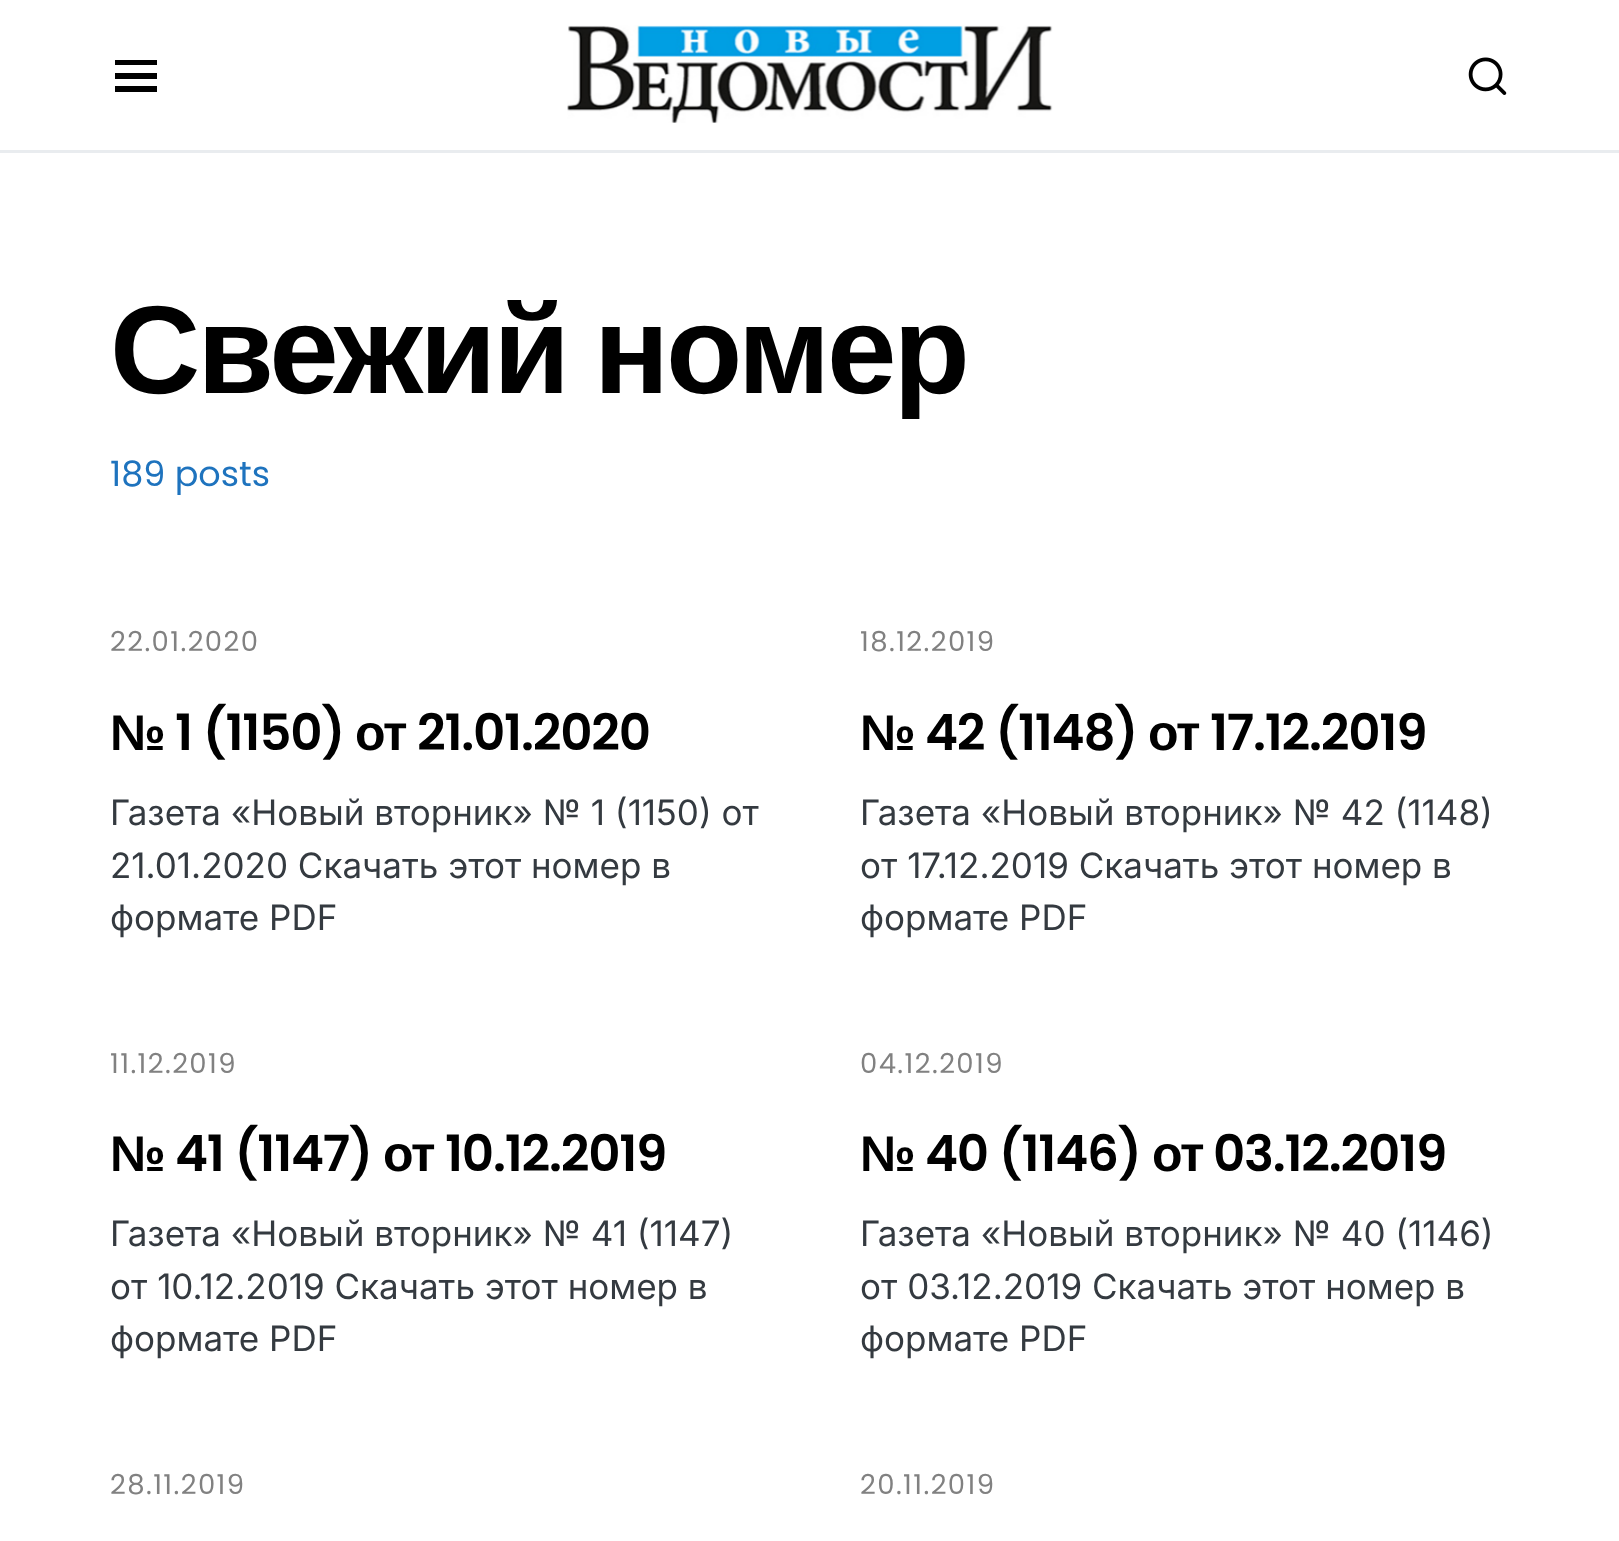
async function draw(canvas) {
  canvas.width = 1619
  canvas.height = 1541
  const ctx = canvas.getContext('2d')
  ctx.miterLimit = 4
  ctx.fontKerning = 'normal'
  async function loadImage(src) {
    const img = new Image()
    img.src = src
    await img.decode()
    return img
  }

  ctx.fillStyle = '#fff'
  ctx.fillRect(0, 0, 1619, 1541)
  ctx.fillStyle = '#e9ecef'
  ctx.fillRect(0, 150, 1619, 3)
  ctx.fillStyle = '#000'
  ctx.beginPath()
  ctx.moveTo(115, 60)
  ctx.lineTo(157, 60)
  ctx.lineTo(157, 65)
  ctx.lineTo(115, 65)
  ctx.closePath()
  ctx.moveTo(115, 73)
  ctx.lineTo(157, 73)
  ctx.lineTo(157, 79)
  ctx.lineTo(115, 79)
  ctx.closePath()
  ctx.moveTo(115, 86)
  ctx.lineTo(157, 86)
  ctx.lineTo(157, 92)
  ctx.lineTo(115, 92)
  ctx.closePath()
  ctx.fill()
  ctx.drawImage(await loadImage('image0.png'), 567, 25, 486, 98)
  ctx.drawImage(await loadImage('image1.png'), 1468, 57, 39, 38)
  ctx.letterSpacing = '-3.1px'
  ctx.wordSpacing = '-5px'
  ctx.font = 'bold 125px Liberation Sans'
  ctx.fillText('Свежий номер', 110, 393)
  ctx.letterSpacing = '0px'
  ctx.wordSpacing = '0px'
  ctx.font = '35px Poppins'
  ctx.fillStyle = '#1e73be'
  ctx.fillText('189 posts', 110, 486)
  ctx.letterSpacing = '1.4px'
  ctx.font = '27.5px Poppins'
  ctx.fillStyle = '#818181'
  ctx.fillText('22.01.2020', 110, 651)
  ctx.letterSpacing = '-1.25px'
  ctx.font = 'bold 50px Liberation Sans'
  ctx.fillStyle = '#000'
  ctx.fillText('№', 110, 750)
  ctx.font = '600 50px Poppins'
  ctx.fillText('1 (1150)', 175, 750)
  ctx.font = 'bold 50px Liberation Sans'
  ctx.fillText('от', 355, 750)
  ctx.font = '600 50px Poppins'
  ctx.fillText('21.01.2020', 417, 750)
  ctx.letterSpacing = '0px'
  ctx.font = '35px Inter'
  ctx.fillStyle = '#343a40'
  ctx.fillText('Газета «Новый вторник» № 1 (1150) от', 110, 825)
  ctx.fillText('21.01.2020 Скачать этот номер в', 110, 878)
  ctx.fillText('формате PDF', 110, 930)
  ctx.letterSpacing = '1.4px'
  ctx.font = '27.5px Poppins'
  ctx.fillStyle = '#818181'
  ctx.fillText('18.12.2019', 860, 651)
  ctx.letterSpacing = '-1.25px'
  ctx.font = 'bold 50px Liberation Sans'
  ctx.fillStyle = '#000'
  ctx.fillText('№', 860, 750)
  ctx.font = '600 50px Poppins'
  ctx.fillText('42 (1148)', 925, 750)
  ctx.font = 'bold 50px Liberation Sans'
  ctx.fillText('от', 1148, 750)
  ctx.font = '600 50px Poppins'
  ctx.fillText('17.12.2019', 1210, 750)
  ctx.letterSpacing = '0px'
  ctx.font = '35px Inter'
  ctx.fillStyle = '#343a40'
  ctx.fillText('Газета «Новый вторник» № 42 (1148)', 860, 825)
  ctx.fillText('от 17.12.2019 Скачать этот номер в', 860, 878)
  ctx.fillText('формате PDF', 860, 930)
  ctx.letterSpacing = '1.4px'
  ctx.font = '27.5px Poppins'
  ctx.fillStyle = '#818181'
  ctx.fillText('11.12.2019', 110, 1073)
  ctx.letterSpacing = '-1.25px'
  ctx.font = 'bold 50px Liberation Sans'
  ctx.fillStyle = '#000'
  ctx.fillText('№', 110, 1171)
  ctx.font = '600 50px Poppins'
  ctx.fillText('41 (1147)', 175, 1171)
  ctx.font = 'bold 50px Liberation Sans'
  ctx.fillText('от', 383, 1171)
  ctx.font = '600 50px Poppins'
  ctx.fillText('10.12.2019', 445, 1171)
  ctx.letterSpacing = '0px'
  ctx.font = '35px Inter'
  ctx.fillStyle = '#343a40'
  ctx.fillText('Газета «Новый вторник» № 41 (1147)', 110, 1246)
  ctx.fillText('от 10.12.2019 Скачать этот номер в', 110, 1299)
  ctx.fillText('формате PDF', 110, 1351)
  ctx.letterSpacing = '1.4px'
  ctx.font = '27.5px Poppins'
  ctx.fillStyle = '#818181'
  ctx.fillText('04.12.2019', 860, 1073)
  ctx.letterSpacing = '-1.25px'
  ctx.font = 'bold 50px Liberation Sans'
  ctx.fillStyle = '#000'
  ctx.fillText('№', 860, 1171)
  ctx.font = '600 50px Poppins'
  ctx.fillText('40 (1146)', 925, 1171)
  ctx.font = 'bold 50px Liberation Sans'
  ctx.fillText('от', 1152, 1171)
  ctx.font = '600 50px Poppins'
  ctx.fillText('03.12.2019', 1213, 1171)
  ctx.letterSpacing = '0px'
  ctx.font = '35px Inter'
  ctx.fillStyle = '#343a40'
  ctx.fillText('Газета «Новый вторник» № 40 (1146)', 860, 1246)
  ctx.fillText('от 03.12.2019 Скачать этот номер в', 860, 1299)
  ctx.fillText('формате PDF', 860, 1351)
  ctx.letterSpacing = '1.4px'
  ctx.font = '27.5px Poppins'
  ctx.fillStyle = '#818181'
  ctx.fillText('28.11.2019', 110, 1494)
  ctx.fillText('20.11.2019', 860, 1494)
}

draw(document.querySelector('canvas'))
